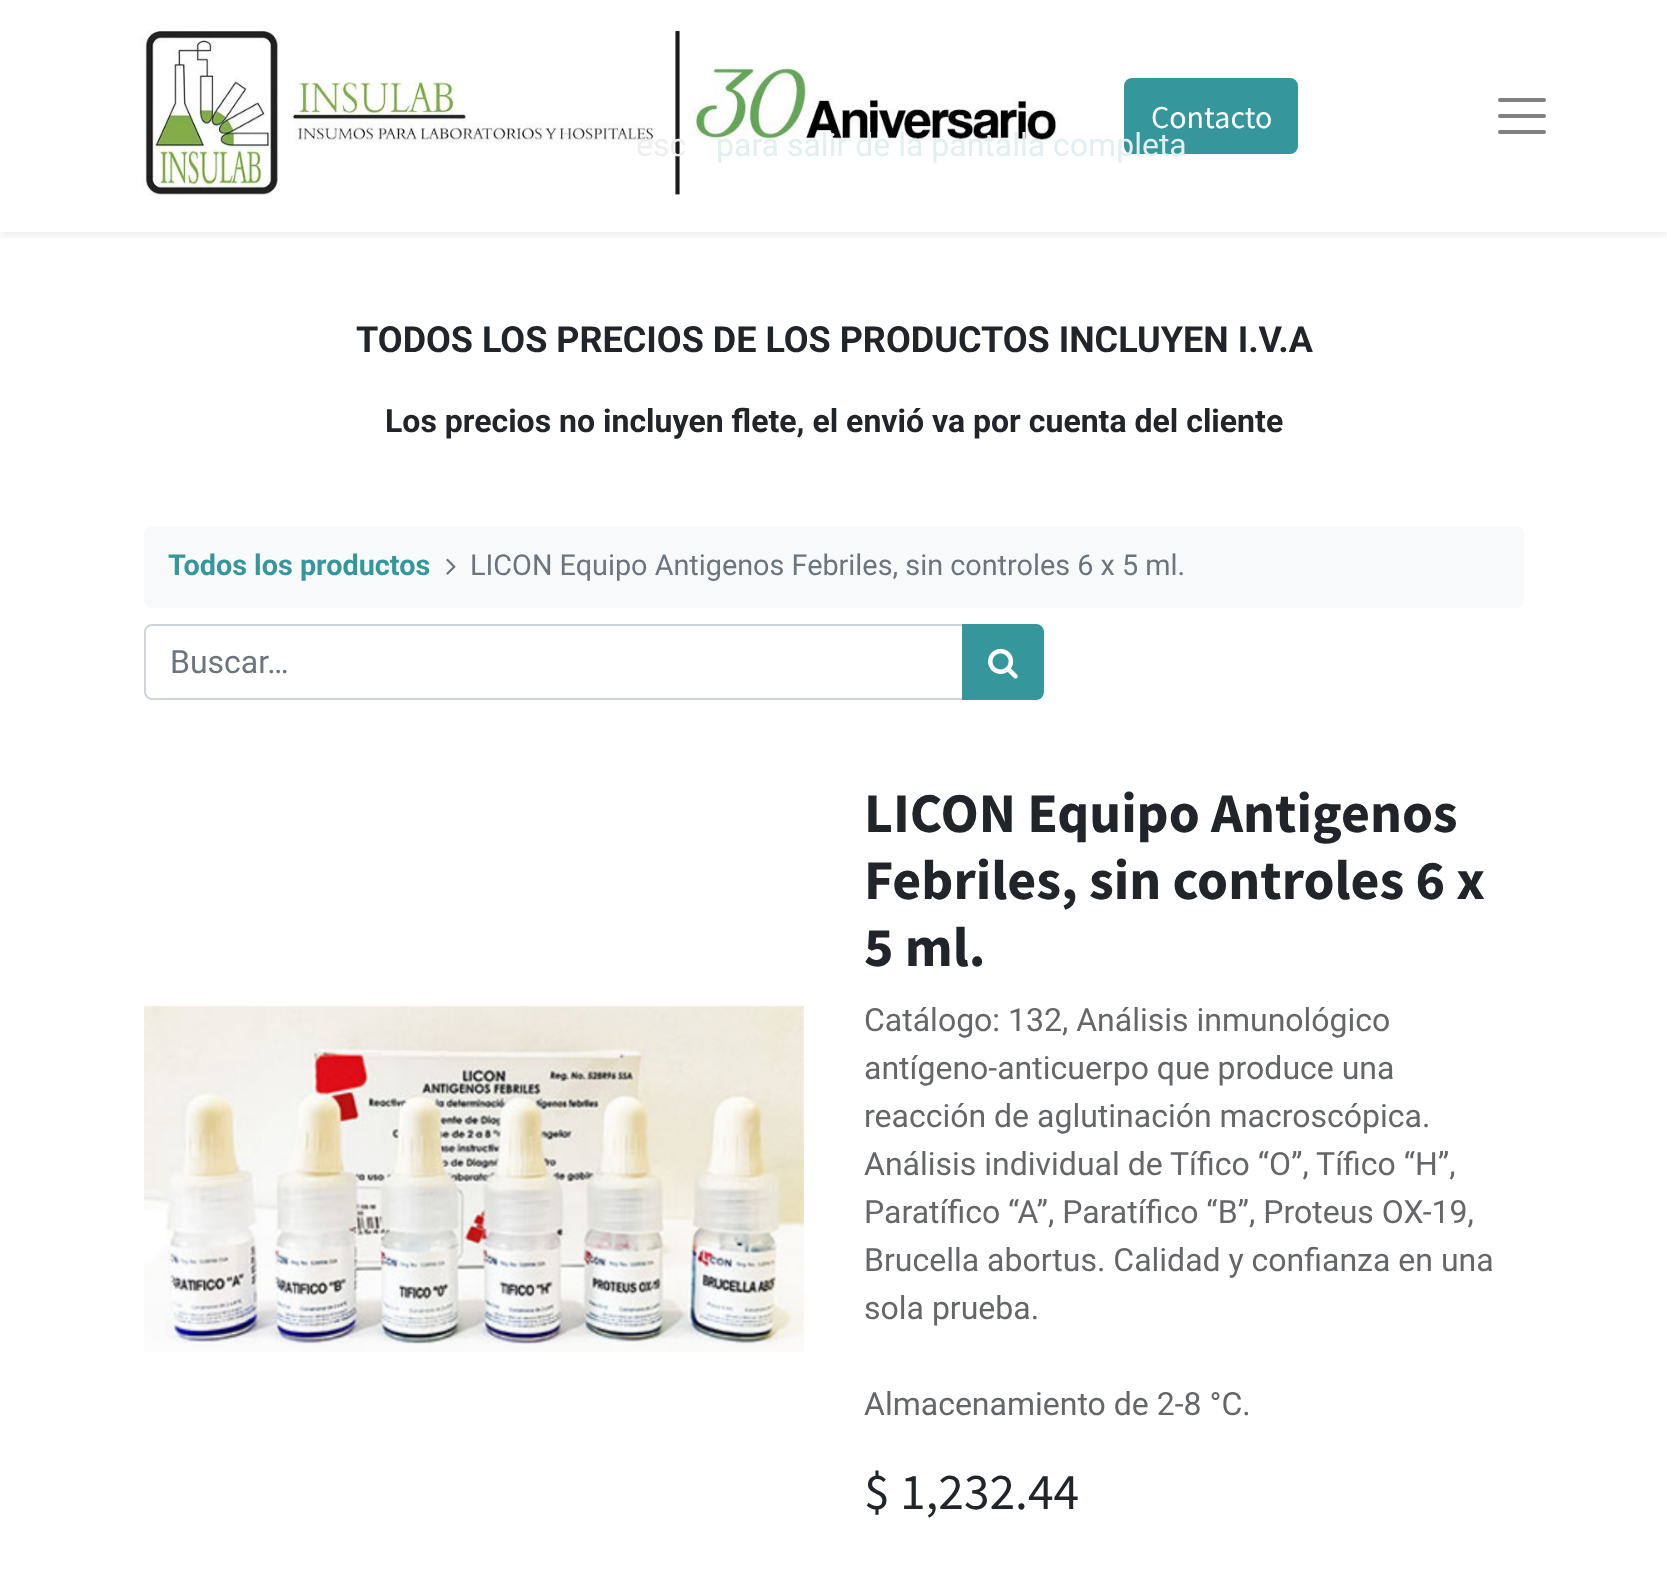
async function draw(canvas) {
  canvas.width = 1667
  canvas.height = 1581
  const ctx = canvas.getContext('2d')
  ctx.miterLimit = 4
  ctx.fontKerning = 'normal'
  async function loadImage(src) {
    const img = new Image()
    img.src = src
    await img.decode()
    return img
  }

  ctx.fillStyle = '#fff'
  ctx.fillRect(0, 0, 1667, 1581)
  ctx.save()
  ctx.beginPath()
  ctx.rect(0, 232, 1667, 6)
  ctx.clip()
  ctx.fillStyle = '#00000012'
  ctx.filter = 'blur(4px)'
  ctx.beginPath()
  ctx.rect(0, 4, 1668, 232)
  ctx.fill()
  ctx.filter = 'none'
  ctx.restore()
  ctx.drawImage(await loadImage('image0.png'), 141, 29, 919, 167)
  ctx.fillStyle = '#35979c'
  ctx.beginPath()
  ctx.roundRect(1125, 79, 172, 74, 7)
  ctx.fill()
  ctx.strokeStyle = '#35979c'
  ctx.lineWidth = 2
  ctx.stroke()
  ctx.font = '32px Source Sans Pro'
  ctx.fillStyle = '#fff'
  ctx.fillText('Contacto', 1151, 128)
  ctx.beginPath()
  ctx.moveTo(1500, 100)
  ctx.lineTo(1544, 100)
  ctx.moveTo(1500, 116)
  ctx.lineTo(1544, 116)
  ctx.moveTo(1500, 132)
  ctx.lineTo(1544, 132)
  ctx.strokeStyle = '#808080'
  ctx.lineWidth = 4
  ctx.lineCap = 'round'
  ctx.stroke()
  ctx.font = 'bold 36px Roboto'
  ctx.fillStyle = '#212529'
  ctx.fillText('TODOS LOS PRECIOS DE LOS PRODUCTOS INCLUYEN I.V.A', 356, 352)
  ctx.font = 'bold 32px Roboto'
  ctx.fillText('Los precios no incluyen flete, el envió va por cuenta del cliente', 385, 432)
  ctx.fillStyle = '#f8f9fa'
  ctx.beginPath()
  ctx.roundRect(144, 526, 1380, 82, 8)
  ctx.fill()
  ctx.font = 'bold 28.8px Roboto'
  ctx.fillStyle = '#35979c'
  ctx.fillText('Todos los productos', 168, 575)
  ctx.drawImage(await loadImage('image1.png'), 446, 558, 10, 17)
  ctx.font = '28.8px Roboto'
  ctx.fillStyle = '#6c757d'
  ctx.fillText('LICON Equipo Antigenos Febriles, sin controles 6 x 5 ml.', 470, 575)
  ctx.beginPath()
  ctx.roundRect(145, 625, 818, 74, [7, 0, 0, 7])
  ctx.strokeStyle = '#ced4da'
  ctx.lineWidth = 2
  ctx.stroke()
  ctx.font = '32px Roboto'
  ctx.fillText('Buscar…', 170, 673)
  ctx.fillStyle = '#35979c'
  ctx.beginPath()
  ctx.roundRect(963, 625, 80, 74, [0, 7, 7, 0])
  ctx.fill()
  ctx.strokeStyle = '#35979c'
  ctx.stroke()
  ctx.drawImage(await loadImage('image2.png'), 988, 648, 30, 31)
  ctx.drawImage(await loadImage('image3.png'), 144, 1005, 660, 347)
  ctx.font = 'bold 56px Source Sans Pro'
  ctx.fillStyle = '#212529'
  ctx.fillText('LICON Equipo Antigenos', 864, 832)
  ctx.fillText('Febriles, sin controles 6 x', 864, 899)
  ctx.fillText('5 ml.', 864, 966)
  ctx.font = '32px Roboto'
  ctx.fillStyle = '#646669'
  ctx.fillText('Catálogo: 132, Análisis inmunológico', 864, 1031)
  ctx.fillText('antígeno-anticuerpo que produce una', 864, 1079)
  ctx.fillText('reacción de aglutinación macroscópica.', 864, 1127)
  ctx.fillText('Análisis individual de Tífico “O”, Tífico “H”,', 864, 1175)
  ctx.fillText('Paratífico “A”, Paratífico “B”, Proteus OX-19,', 864, 1223)
  ctx.fillText('Brucella abortus. Calidad y confianza en una', 864, 1271)
  ctx.fillText('sola prueba.', 864, 1319)
  ctx.fillText('Almacenamiento de 2-8 °C.', 864, 1415)
  ctx.font = '51.5px Source Sans Pro'
  ctx.fillStyle = '#212529'
  ctx.fillText('$ 1,232.44', 864, 1509)
  ctx.font = '32px Roboto'
  ctx.fillStyle = '#eee'
  ctx.fillText('esc', 636, 156)
  ctx.fillStyle = '#e2eeef'
  ctx.fillText('para salir de la pantalla completa', 716, 156)
}

draw(document.querySelector('canvas'))
